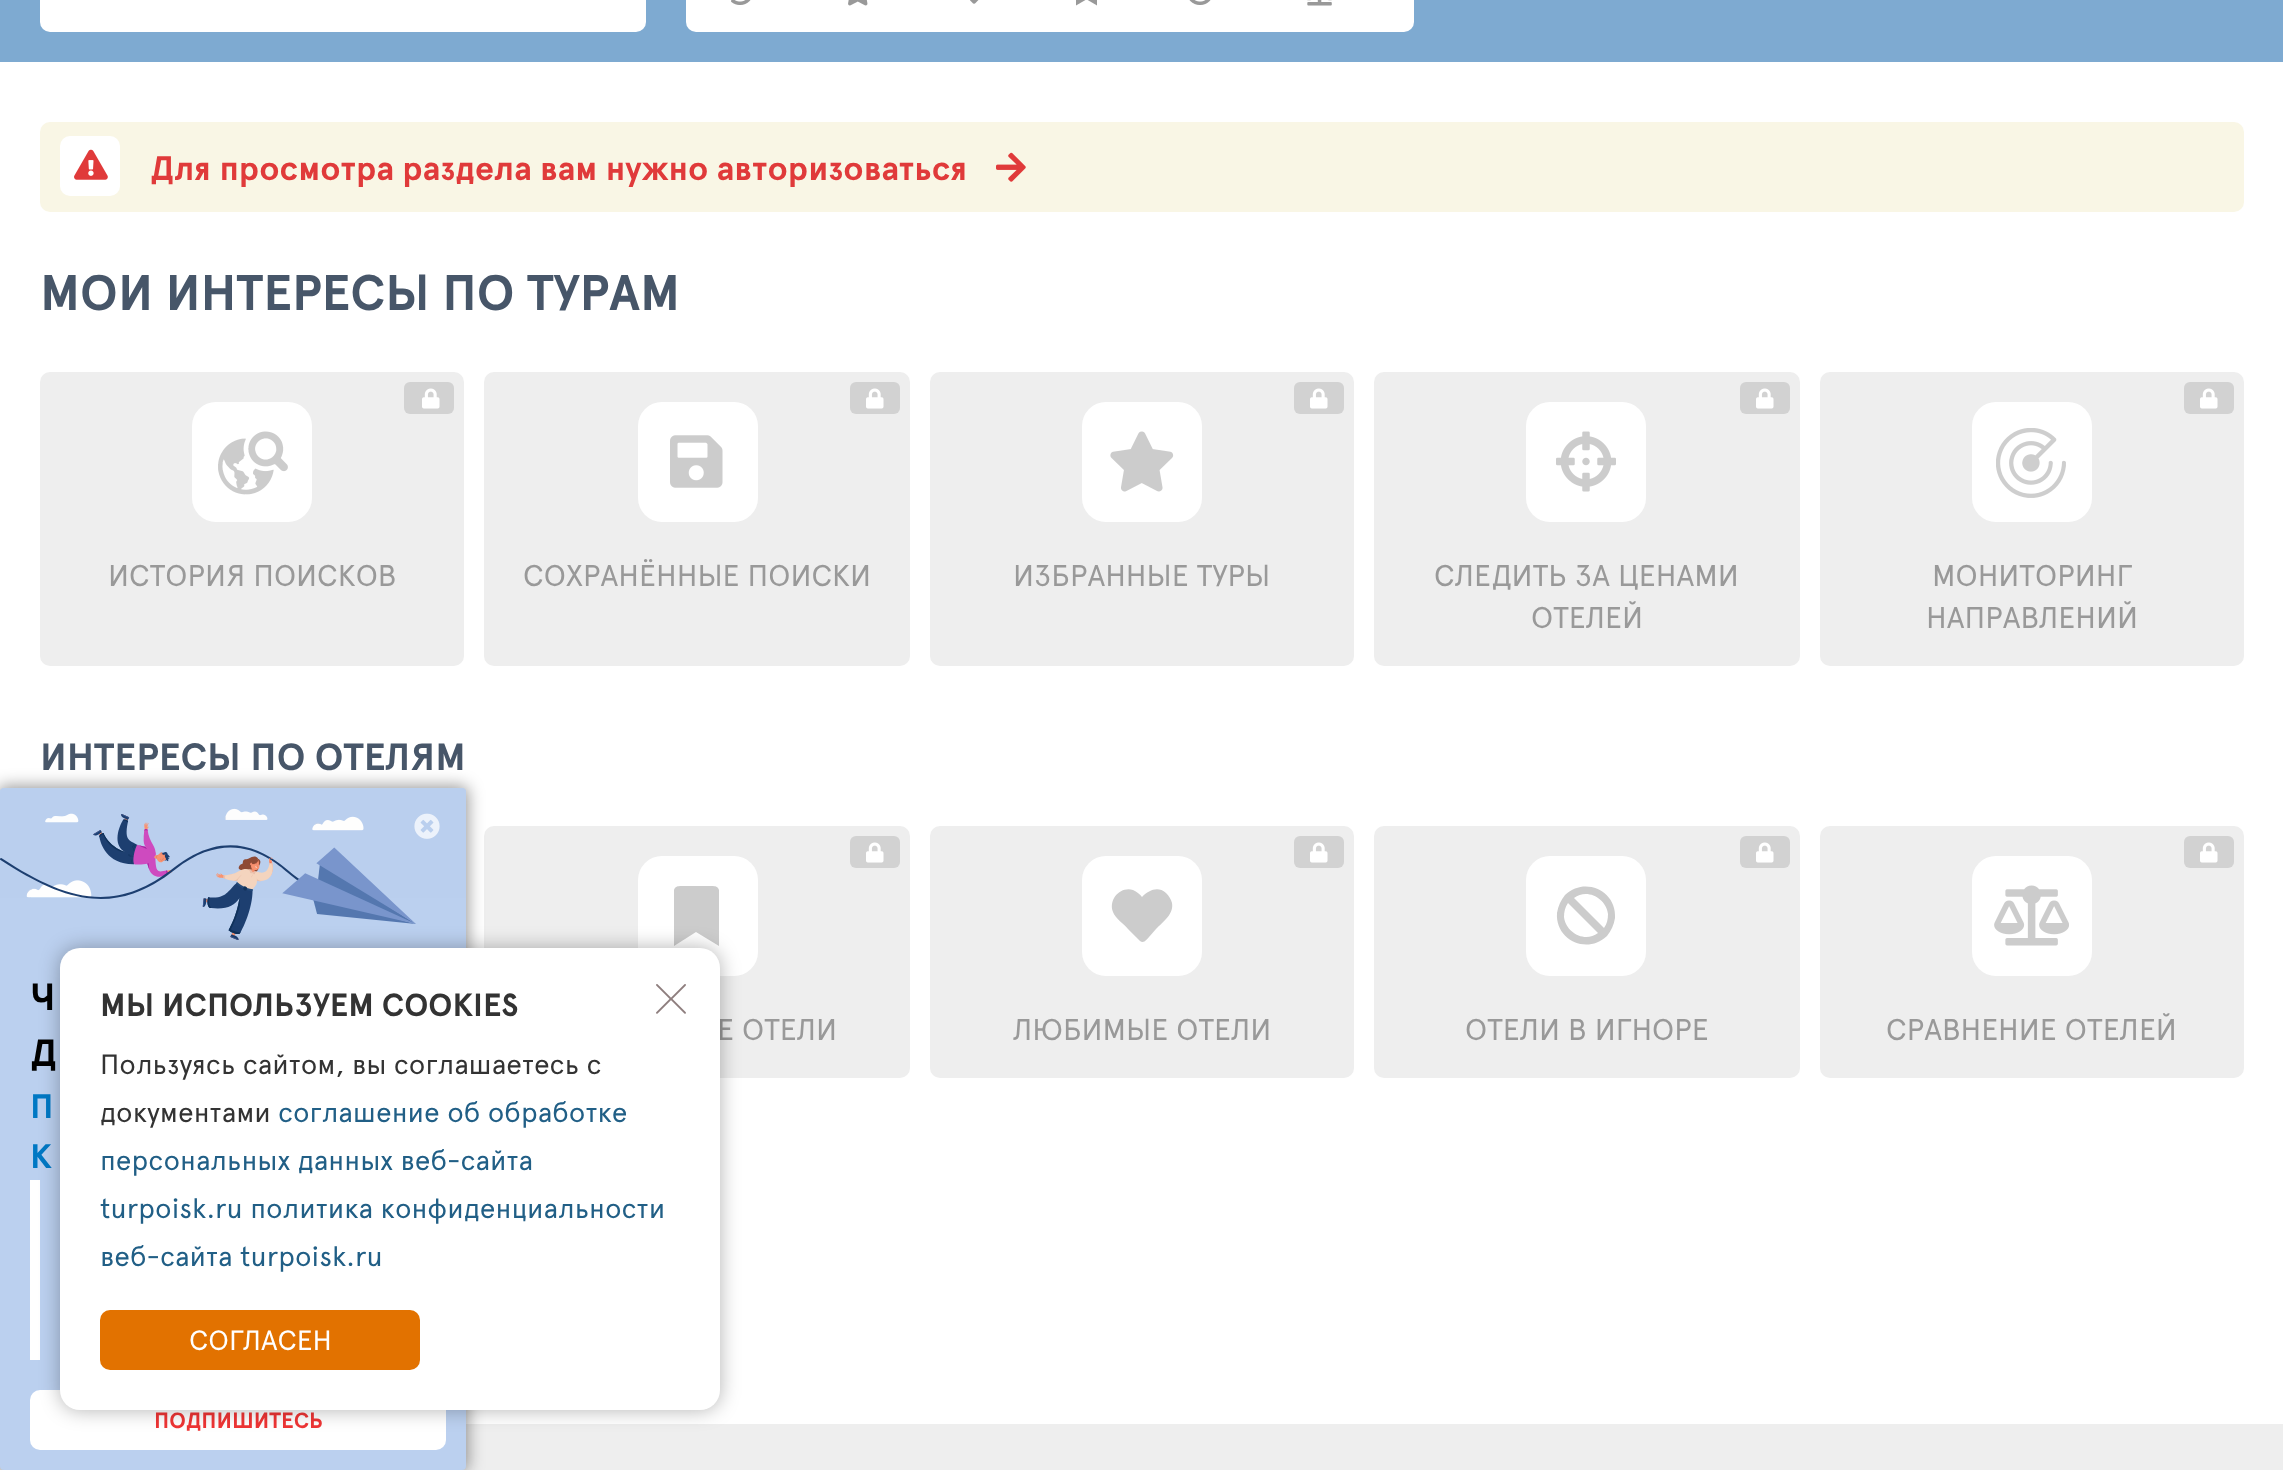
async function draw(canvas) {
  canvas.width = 2283
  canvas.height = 1470
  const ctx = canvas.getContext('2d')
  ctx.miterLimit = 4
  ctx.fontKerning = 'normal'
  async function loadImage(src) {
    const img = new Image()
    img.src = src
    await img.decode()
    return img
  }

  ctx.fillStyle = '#fff'
  ctx.fillRect(0, 0, 2283, 1470)
  ctx.fillStyle = '#7eaad1'
  ctx.fillRect(0, 0, 2283, 62)
  ctx.fillStyle = '#fff'
  ctx.beginPath()
  ctx.roundRect(40, -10, 606, 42, 10)
  ctx.fill()
  ctx.beginPath()
  ctx.roundRect(686, -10, 728, 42, 10)
  ctx.fill()
  ctx.drawImage(await loadImage('image0.png'), 731, 0, 20, 5)
  ctx.drawImage(await loadImage('image1.png'), 848, 0, 20, 6)
  ctx.drawImage(await loadImage('image2.png'), 970, 0, 9, 4)
  ctx.drawImage(await loadImage('image3.png'), 1076, 0, 21, 6)
  ctx.drawImage(await loadImage('image4.png'), 1189, 0, 22, 5)
  ctx.drawImage(await loadImage('image5.png'), 1307, 0, 25, 6)
  ctx.fillStyle = '#f9f6e5'
  ctx.beginPath()
  ctx.roundRect(40, 122, 2204, 90, 10)
  ctx.fill()
  ctx.fillStyle = '#fff'
  ctx.beginPath()
  ctx.roundRect(60, 136, 60, 60, 10)
  ctx.fill()
  ctx.drawImage(await loadImage('image6.png'), 74, 149, 34, 31)
  ctx.font = 'bold 34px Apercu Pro'
  ctx.fillStyle = '#e03a3a'
  ctx.fillText('Для просмотра раздела вам нужно авторизоваться', 150, 180)
  ctx.drawImage(await loadImage('image7.png'), 996, 152, 30, 30)
  ctx.font = 'bold 50px Apercu Pro'
  ctx.fillStyle = '#475669'
  ctx.fillText('МОИ ИНТЕРЕСЫ ПО ТУРАМ', 40, 310)
  ctx.fillStyle = '#eee'
  ctx.beginPath()
  ctx.roundRect(40, 372, 424, 294, 10)
  ctx.fill()
  ctx.fillStyle = '#d2d2d2'
  ctx.beginPath()
  ctx.roundRect(404, 382, 50, 32, 6)
  ctx.fill()
  ctx.drawImage(await loadImage('image8.png'), 422, 388, 18, 21)
  ctx.fillStyle = '#fff'
  ctx.beginPath()
  ctx.roundRect(192, 402, 120, 120, 24)
  ctx.fill()
  ctx.drawImage(await loadImage('image9.png'), 218, 431, 70, 64)
  ctx.font = '30px Apercu Pro'
  ctx.fillStyle = '#999'
  ctx.fillText('ИСТОРИЯ ПОИСКОВ', 108, 586)
  ctx.fillStyle = '#eee'
  ctx.beginPath()
  ctx.roundRect(484, 372, 426, 294, 10)
  ctx.fill()
  ctx.fillStyle = '#d2d2d2'
  ctx.beginPath()
  ctx.roundRect(850, 382, 50, 32, 6)
  ctx.fill()
  ctx.drawImage(await loadImage('image8.png'), 866, 388, 18, 21)
  ctx.fillStyle = '#fff'
  ctx.beginPath()
  ctx.roundRect(638, 402, 120, 120, 24)
  ctx.fill()
  ctx.drawImage(await loadImage('image10.png'), 670, 435, 53, 53)
  ctx.fillStyle = '#999'
  ctx.fillText('СОХРАНЁННЫЕ ПОИСКИ', 523, 586)
  ctx.fillStyle = '#eee'
  ctx.beginPath()
  ctx.roundRect(930, 372, 424, 294, 10)
  ctx.fill()
  ctx.fillStyle = '#d2d2d2'
  ctx.beginPath()
  ctx.roundRect(1294, 382, 50, 32, 6)
  ctx.fill()
  ctx.drawImage(await loadImage('image8.png'), 1310, 388, 18, 21)
  ctx.fillStyle = '#fff'
  ctx.beginPath()
  ctx.roundRect(1082, 402, 120, 120, 24)
  ctx.fill()
  ctx.drawImage(await loadImage('image11.png'), 1110, 431, 64, 61)
  ctx.fillStyle = '#999'
  ctx.fillText('ИЗБРАННЫЕ ТУРЫ', 1013, 586)
  ctx.fillStyle = '#eee'
  ctx.beginPath()
  ctx.roundRect(1374, 372, 426, 294, 10)
  ctx.fill()
  ctx.fillStyle = '#d2d2d2'
  ctx.beginPath()
  ctx.roundRect(1740, 382, 50, 32, 6)
  ctx.fill()
  ctx.drawImage(await loadImage('image8.png'), 1756, 388, 18, 21)
  ctx.fillStyle = '#fff'
  ctx.beginPath()
  ctx.roundRect(1526, 402, 120, 120, 24)
  ctx.fill()
  ctx.drawImage(await loadImage('image12.png'), 1556, 431, 60, 61)
  ctx.fillStyle = '#999'
  ctx.fillText('СЛЕДИТЬ ЗА ЦЕНАМИ', 1434, 586)
  ctx.fillText('ОТЕЛЕЙ', 1531, 628)
  ctx.fillStyle = '#eee'
  ctx.beginPath()
  ctx.roundRect(1820, 372, 424, 294, 10)
  ctx.fill()
  ctx.fillStyle = '#d2d2d2'
  ctx.beginPath()
  ctx.roundRect(2184, 382, 50, 32, 6)
  ctx.fill()
  ctx.drawImage(await loadImage('image8.png'), 2200, 388, 18, 21)
  ctx.fillStyle = '#fff'
  ctx.beginPath()
  ctx.roundRect(1972, 402, 120, 120, 24)
  ctx.fill()
  ctx.drawImage(await loadImage('image13.png'), 1996, 428, 70, 70)
  ctx.fillStyle = '#999'
  ctx.fillText('МОНИТОРИНГ', 1932, 586)
  ctx.fillText('НАПРАВЛЕНИЙ', 1926, 628)
  ctx.font = 'bold 38px Apercu Pro'
  ctx.fillStyle = '#475669'
  ctx.fillText('ИНТЕРЕСЫ ПО ОТЕЛЯМ', 40, 770)
  ctx.fillStyle = '#eee'
  ctx.beginPath()
  ctx.roundRect(484, 826, 426, 252, 10)
  ctx.fill()
  ctx.fillStyle = '#d2d2d2'
  ctx.beginPath()
  ctx.roundRect(850, 836, 50, 32, 6)
  ctx.fill()
  ctx.drawImage(await loadImage('image8.png'), 866, 842, 18, 21)
  ctx.fillStyle = '#fff'
  ctx.beginPath()
  ctx.roundRect(638, 856, 120, 120, 24)
  ctx.fill()
  ctx.fillStyle = '#ccc'
  ctx.beginPath()
  ctx.moveTo(674, 946)
  ctx.lineTo(674, 890)
  ctx.bezierCurveTo(675, 885, 681, 886, 685, 886)
  ctx.lineTo(708, 886)
  ctx.bezierCurveTo(712, 886, 718, 885, 719, 890)
  ctx.lineTo(719, 946)
  ctx.lineTo(696, 932)
  ctx.closePath()
  ctx.fill()
  ctx.font = '30px Apercu Pro'
  ctx.fillStyle = '#999'
  ctx.fillText('Е ОТЕЛИ', 717, 1040)
  ctx.fillStyle = '#eee'
  ctx.beginPath()
  ctx.roundRect(930, 826, 424, 252, 10)
  ctx.fill()
  ctx.fillStyle = '#d2d2d2'
  ctx.beginPath()
  ctx.roundRect(1294, 836, 50, 32, 6)
  ctx.fill()
  ctx.drawImage(await loadImage('image8.png'), 1310, 842, 18, 21)
  ctx.fillStyle = '#fff'
  ctx.beginPath()
  ctx.roundRect(1082, 856, 120, 120, 24)
  ctx.fill()
  ctx.fillStyle = '#ccc'
  ctx.beginPath()
  ctx.moveTo(1166, 893)
  ctx.bezierCurveTo(1169, 896, 1171, 899, 1172, 903)
  ctx.bezierCurveTo(1174, 914, 1163, 922, 1156, 929)
  ctx.lineTo(1149, 937)
  ctx.bezierCurveTo(1147, 939, 1144, 944, 1140, 941)
  ctx.lineTo(1128, 929)
  ctx.bezierCurveTo(1124, 924, 1115, 918, 1113, 912)
  ctx.bezierCurveTo(1108, 899, 1121, 886, 1133, 890)
  ctx.bezierCurveTo(1137, 892, 1140, 894, 1142, 897)
  ctx.bezierCurveTo(1149, 890, 1158, 886, 1166, 893)
  ctx.closePath()
  ctx.fill()
  ctx.fillStyle = '#999'
  ctx.fillText('ЛЮБИМЫЕ ОТЕЛИ', 1013, 1040)
  ctx.fillStyle = '#eee'
  ctx.beginPath()
  ctx.roundRect(1374, 826, 426, 252, 10)
  ctx.fill()
  ctx.fillStyle = '#d2d2d2'
  ctx.beginPath()
  ctx.roundRect(1740, 836, 50, 32, 6)
  ctx.fill()
  ctx.drawImage(await loadImage('image8.png'), 1756, 842, 18, 21)
  ctx.fillStyle = '#fff'
  ctx.beginPath()
  ctx.roundRect(1526, 856, 120, 120, 24)
  ctx.fill()
  ctx.fillStyle = '#ccc'
  ctx.beginPath()
  ctx.moveTo(1565, 895)
  ctx.bezierCurveTo(1585, 876, 1617, 891, 1615, 918)
  ctx.bezierCurveTo(1614, 925, 1611, 931, 1607, 936)
  ctx.bezierCurveTo(1587, 955, 1555, 940, 1557, 913)
  ctx.bezierCurveTo(1558, 906, 1561, 900, 1565, 895)
  ctx.closePath()
  ctx.moveTo(1608, 914)
  ctx.bezierCurveTo(1606, 898, 1587, 888, 1574, 898)
  ctx.lineTo(1604, 928)
  ctx.bezierCurveTo(1607, 924, 1608, 919, 1608, 914)
  ctx.closePath()
  ctx.moveTo(1564, 917)
  ctx.bezierCurveTo(1566, 933, 1585, 943, 1598, 933)
  ctx.lineTo(1568, 903)
  ctx.bezierCurveTo(1565, 907, 1564, 912, 1564, 917)
  ctx.closePath()
  ctx.fill()
  ctx.fillStyle = '#999'
  ctx.fillText('ОТЕЛИ В ИГНОРЕ', 1465, 1040)
  ctx.fillStyle = '#eee'
  ctx.beginPath()
  ctx.roundRect(1820, 826, 424, 252, 10)
  ctx.fill()
  ctx.fillStyle = '#d2d2d2'
  ctx.beginPath()
  ctx.roundRect(2184, 836, 50, 32, 6)
  ctx.fill()
  ctx.drawImage(await loadImage('image8.png'), 2200, 842, 18, 21)
  ctx.fillStyle = '#fff'
  ctx.beginPath()
  ctx.roundRect(1972, 856, 120, 120, 24)
  ctx.fill()
  ctx.drawImage(await loadImage('image14.png'), 1994, 885, 75, 61)
  ctx.fillStyle = '#999'
  ctx.fillText('СРАВНЕНИЕ ОТЕЛЕЙ', 1886, 1040)
  ctx.fillStyle = '#eee'
  ctx.fillRect(0, 1424, 2283, 46)
  ctx.fillStyle = '#00000066'
  ctx.filter = 'blur(8px)'
  ctx.beginPath()
  ctx.roundRect(-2, 786, 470, 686, 6)
  ctx.fill()
  ctx.filter = 'none'
  ctx.fillStyle = '#bbd0ef'
  ctx.beginPath()
  ctx.roundRect(0, 788, 466, 682, 4)
  ctx.fill()
  ctx.drawImage(await loadImage('image15.png'), 0, 788, 466, 110)
  ctx.drawImage(await loadImage('image16.png'), 0, 814, 416, 126)
  ctx.drawImage(await loadImage('image17.png'), 414, 813, 26, 26)
  ctx.font = 'bold 38px Apercu Pro'
  ctx.fillStyle = '#000'
  ctx.fillText('Ч', 30, 1010)
  ctx.fillText('Д', 30, 1066)
  ctx.font = 'bold 34px Apercu Pro'
  ctx.fillStyle = '#0078c4'
  ctx.fillText('П', 30, 1118)
  ctx.fillText('К', 30, 1168)
  ctx.fillStyle = '#fff'
  ctx.fillRect(30, 1180, 10, 180)
  ctx.beginPath()
  ctx.roundRect(30, 1390, 416, 60, 10)
  ctx.fill()
  ctx.font = 'bold 22px Apercu Pro'
  ctx.fillStyle = '#ef3535'
  ctx.fillText('ПОДПИШИТЕСЬ', 154, 1428)
  ctx.fillStyle = '#0000004d'
  ctx.filter = 'blur(10px)'
  ctx.beginPath()
  ctx.roundRect(60, 948, 660, 462, 20)
  ctx.fill()
  ctx.filter = 'none'
  ctx.fillStyle = '#fff'
  ctx.beginPath()
  ctx.roundRect(60, 948, 660, 462, 20)
  ctx.fill()
  ctx.font = 'bold 32px Apercu Pro'
  ctx.fillStyle = '#333'
  ctx.fillText('МЫ ИСПОЛЬЗУЕМ COOKIES', 100, 1016)
  ctx.drawImage(await loadImage('image18.png'), 656, 984, 30, 30)
  ctx.font = '28px Apercu Pro'
  ctx.fillText('Пользуясь сайтом, вы соглашаетесь с', 100, 1074)
  ctx.fillText('документами', 100, 1122)
  ctx.fillStyle = '#215f86'
  ctx.fillText('соглашение об обработке', 278, 1122)
  ctx.fillText('персональных данных веб-сайта', 100, 1170)
  ctx.fillText('turpoisk.ru политика конфиденциальности', 100, 1218)
  ctx.fillText('веб-сайта turpoisk.ru', 100, 1266)
  ctx.fillStyle = '#e27200'
  ctx.beginPath()
  ctx.roundRect(100, 1310, 320, 60, 10)
  ctx.fill()
  ctx.fillStyle = '#fff'
  ctx.fillText('СОГЛАСЕН', 189, 1350)
}

draw(document.querySelector('canvas'))
